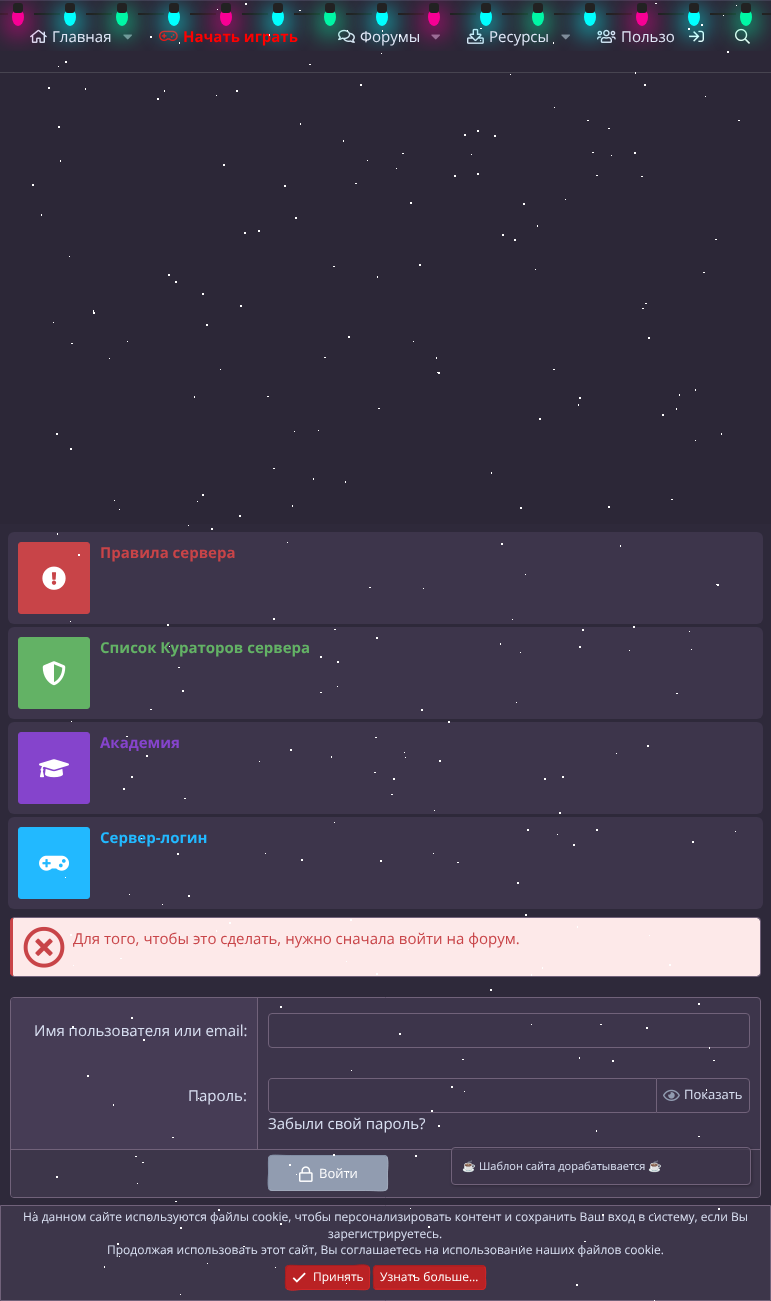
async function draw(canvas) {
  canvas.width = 771
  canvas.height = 1301
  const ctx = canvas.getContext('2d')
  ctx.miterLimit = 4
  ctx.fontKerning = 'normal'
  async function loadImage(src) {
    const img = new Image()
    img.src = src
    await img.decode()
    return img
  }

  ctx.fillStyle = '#2e293a'
  ctx.fillRect(0, 0, 771, 1301)
  ctx.fillStyle = '#473f56'
  ctx.fillRect(0, 0, 771, 1)
  ctx.fillStyle = '#1e1e1e1a'
  ctx.fillRect(0, 0, 771, 524)
  ctx.fillStyle = '#222'
  ctx.fillRect(0, 13, 8, 2)
  ctx.drawImage(await loadImage('image0.png'), 30, 29, 17, 14)
  ctx.save()
  ctx.beginPath()
  ctx.rect(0, 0, 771, 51)
  ctx.clip()
  ctx.fillStyle = '#f70094'
  ctx.filter = 'blur(12px)'
  ctx.beginPath()
  ctx.roundRect(9, 10, 18, 24, 9)
  ctx.fill()
  ctx.filter = 'none'
  ctx.restore()
  ctx.fillStyle = '#f70094'
  ctx.beginPath()
  ctx.ellipse(18, 17, 6, 9, 0, 0, 2 * Math.PI)
  ctx.fill()
  ctx.fillStyle = '#222'
  ctx.beginPath()
  ctx.roundRect(13, 3, 10, 10, 3)
  ctx.fill()
  ctx.fillRect(34, 13, 26, 2)
  ctx.save()
  ctx.beginPath()
  ctx.rect(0, 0, 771, 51)
  ctx.clip()
  ctx.fillStyle = '#0ff'
  ctx.filter = 'blur(12px)'
  ctx.beginPath()
  ctx.roundRect(61, 10, 18, 24, 9)
  ctx.fill()
  ctx.filter = 'none'
  ctx.restore()
  ctx.fillStyle = '#0ff'
  ctx.beginPath()
  ctx.ellipse(70, 17, 6, 9, 0, 0, 2 * Math.PI)
  ctx.fill()
  ctx.fillStyle = '#222'
  ctx.beginPath()
  ctx.roundRect(65, 3, 10, 10, 3)
  ctx.fill()
  ctx.fillRect(86, 13, 26, 2)
  ctx.drawImage(await loadImage('image1.png'), 123, 34, 9, 6)
  ctx.drawImage(await loadImage('image2.png'), 159, 30, 19, 12)
  ctx.save()
  ctx.beginPath()
  ctx.rect(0, 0, 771, 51)
  ctx.clip()
  ctx.fillStyle = '#00f7a5'
  ctx.filter = 'blur(12px)'
  ctx.beginPath()
  ctx.roundRect(113, 10, 18, 24, 9)
  ctx.fill()
  ctx.filter = 'none'
  ctx.restore()
  ctx.fillStyle = '#00f7a5'
  ctx.beginPath()
  ctx.ellipse(122, 17, 6, 9, 0, 0, 2 * Math.PI)
  ctx.fill()
  ctx.fillStyle = '#222'
  ctx.beginPath()
  ctx.roundRect(117, 3, 10, 10, 3)
  ctx.fill()
  ctx.fillRect(138, 13, 26, 2)
  ctx.save()
  ctx.beginPath()
  ctx.rect(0, 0, 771, 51)
  ctx.clip()
  ctx.fillStyle = '#0ff'
  ctx.filter = 'blur(12px)'
  ctx.beginPath()
  ctx.roundRect(165, 10, 18, 24, 9)
  ctx.fill()
  ctx.filter = 'none'
  ctx.restore()
  ctx.fillStyle = '#0ff'
  ctx.beginPath()
  ctx.ellipse(174, 17, 6, 9, 0, 0, 2 * Math.PI)
  ctx.fill()
  ctx.fillStyle = '#222'
  ctx.beginPath()
  ctx.roundRect(169, 3, 10, 10, 3)
  ctx.fill()
  ctx.fillRect(190, 13, 26, 2)
  ctx.save()
  ctx.beginPath()
  ctx.rect(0, 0, 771, 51)
  ctx.clip()
  ctx.fillStyle = '#f70094'
  ctx.filter = 'blur(12px)'
  ctx.beginPath()
  ctx.roundRect(217, 10, 18, 24, 9)
  ctx.fill()
  ctx.filter = 'none'
  ctx.restore()
  ctx.fillStyle = '#f70094'
  ctx.beginPath()
  ctx.ellipse(226, 17, 6, 9, 0, 0, 2 * Math.PI)
  ctx.fill()
  ctx.fillStyle = '#222'
  ctx.beginPath()
  ctx.roundRect(221, 3, 10, 10, 3)
  ctx.fill()
  ctx.fillRect(242, 13, 26, 2)
  ctx.save()
  ctx.beginPath()
  ctx.rect(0, 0, 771, 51)
  ctx.clip()
  ctx.fillStyle = '#0ff'
  ctx.filter = 'blur(12px)'
  ctx.beginPath()
  ctx.roundRect(269, 10, 18, 24, 9)
  ctx.fill()
  ctx.filter = 'none'
  ctx.restore()
  ctx.fillStyle = '#0ff'
  ctx.beginPath()
  ctx.ellipse(278, 17, 6, 9, 0, 0, 2 * Math.PI)
  ctx.fill()
  ctx.fillStyle = '#222'
  ctx.beginPath()
  ctx.roundRect(273, 3, 10, 10, 3)
  ctx.fill()
  ctx.fillRect(294, 13, 26, 2)
  ctx.drawImage(await loadImage('image3.png'), 338, 29, 17, 14)
  ctx.save()
  ctx.beginPath()
  ctx.rect(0, 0, 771, 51)
  ctx.clip()
  ctx.fillStyle = '#00f7a5'
  ctx.filter = 'blur(12px)'
  ctx.beginPath()
  ctx.roundRect(321, 10, 18, 24, 9)
  ctx.fill()
  ctx.filter = 'none'
  ctx.restore()
  ctx.fillStyle = '#00f7a5'
  ctx.beginPath()
  ctx.ellipse(330, 17, 6, 9, 0, 0, 2 * Math.PI)
  ctx.fill()
  ctx.fillStyle = '#222'
  ctx.beginPath()
  ctx.roundRect(325, 3, 10, 10, 3)
  ctx.fill()
  ctx.fillRect(346, 13, 26, 2)
  ctx.save()
  ctx.beginPath()
  ctx.rect(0, 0, 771, 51)
  ctx.clip()
  ctx.fillStyle = '#0ff'
  ctx.filter = 'blur(12px)'
  ctx.beginPath()
  ctx.roundRect(373, 10, 18, 24, 9)
  ctx.fill()
  ctx.filter = 'none'
  ctx.restore()
  ctx.fillStyle = '#0ff'
  ctx.beginPath()
  ctx.ellipse(382, 17, 6, 9, 0, 0, 2 * Math.PI)
  ctx.fill()
  ctx.fillStyle = '#222'
  ctx.beginPath()
  ctx.roundRect(377, 3, 10, 10, 3)
  ctx.fill()
  ctx.fillRect(398, 13, 26, 2)
  ctx.drawImage(await loadImage('image1.png'), 431, 34, 9, 6)
  ctx.drawImage(await loadImage('image4.png'), 467, 28, 17, 16)
  ctx.save()
  ctx.beginPath()
  ctx.rect(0, 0, 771, 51)
  ctx.clip()
  ctx.fillStyle = '#f70094'
  ctx.filter = 'blur(12px)'
  ctx.beginPath()
  ctx.roundRect(425, 10, 18, 24, 9)
  ctx.fill()
  ctx.filter = 'none'
  ctx.restore()
  ctx.fillStyle = '#f70094'
  ctx.beginPath()
  ctx.ellipse(434, 17, 6, 9, 0, 0, 2 * Math.PI)
  ctx.fill()
  ctx.fillStyle = '#222'
  ctx.beginPath()
  ctx.roundRect(429, 3, 10, 10, 3)
  ctx.fill()
  ctx.fillRect(450, 13, 26, 2)
  ctx.save()
  ctx.beginPath()
  ctx.rect(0, 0, 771, 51)
  ctx.clip()
  ctx.fillStyle = '#0ff'
  ctx.filter = 'blur(12px)'
  ctx.beginPath()
  ctx.roundRect(477, 10, 18, 24, 9)
  ctx.fill()
  ctx.filter = 'none'
  ctx.restore()
  ctx.fillStyle = '#0ff'
  ctx.beginPath()
  ctx.ellipse(486, 17, 6, 9, 0, 0, 2 * Math.PI)
  ctx.fill()
  ctx.fillStyle = '#222'
  ctx.beginPath()
  ctx.roundRect(481, 3, 10, 10, 3)
  ctx.fill()
  ctx.fillRect(502, 13, 26, 2)
  ctx.drawImage(await loadImage('image1.png'), 561, 34, 9, 6)
  ctx.save()
  ctx.beginPath()
  ctx.rect(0, 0, 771, 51)
  ctx.clip()
  ctx.fillStyle = '#00f7a5'
  ctx.filter = 'blur(12px)'
  ctx.beginPath()
  ctx.roundRect(529, 10, 18, 24, 9)
  ctx.fill()
  ctx.filter = 'none'
  ctx.restore()
  ctx.fillStyle = '#00f7a5'
  ctx.beginPath()
  ctx.ellipse(538, 17, 6, 9, 0, 0, 2 * Math.PI)
  ctx.fill()
  ctx.fillStyle = '#222'
  ctx.beginPath()
  ctx.roundRect(533, 3, 10, 10, 3)
  ctx.fill()
  ctx.fillRect(554, 13, 26, 2)
  ctx.drawImage(await loadImage('image5.png'), 597, 29, 19, 14)
  ctx.save()
  ctx.beginPath()
  ctx.rect(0, 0, 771, 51)
  ctx.clip()
  ctx.fillStyle = '#0ff'
  ctx.filter = 'blur(12px)'
  ctx.beginPath()
  ctx.roundRect(581, 10, 18, 24, 9)
  ctx.fill()
  ctx.filter = 'none'
  ctx.restore()
  ctx.fillStyle = '#0ff'
  ctx.beginPath()
  ctx.ellipse(590, 17, 6, 9, 0, 0, 2 * Math.PI)
  ctx.fill()
  ctx.fillStyle = '#222'
  ctx.beginPath()
  ctx.roundRect(585, 3, 10, 10, 3)
  ctx.fill()
  ctx.fillRect(606, 13, 26, 2)
  ctx.save()
  ctx.beginPath()
  ctx.rect(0, 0, 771, 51)
  ctx.clip()
  ctx.fillStyle = '#f70094'
  ctx.filter = 'blur(12px)'
  ctx.beginPath()
  ctx.roundRect(633, 10, 18, 24, 9)
  ctx.fill()
  ctx.filter = 'none'
  ctx.restore()
  ctx.fillStyle = '#f70094'
  ctx.beginPath()
  ctx.ellipse(642, 17, 6, 9, 0, 0, 2 * Math.PI)
  ctx.fill()
  ctx.fillStyle = '#222'
  ctx.beginPath()
  ctx.roundRect(637, 3, 10, 10, 3)
  ctx.fill()
  ctx.fillRect(658, 13, 26, 2)
  ctx.drawImage(await loadImage('image6.png'), 689, 30, 15, 12)
  ctx.drawImage(await loadImage('image7.png'), 735, 28, 15, 16)
  ctx.save()
  ctx.beginPath()
  ctx.rect(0, 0, 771, 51)
  ctx.clip()
  ctx.fillStyle = '#0ff'
  ctx.filter = 'blur(12px)'
  ctx.beginPath()
  ctx.roundRect(685, 10, 18, 24, 9)
  ctx.fill()
  ctx.filter = 'none'
  ctx.restore()
  ctx.fillStyle = '#0ff'
  ctx.beginPath()
  ctx.ellipse(694, 17, 6, 9, 0, 0, 2 * Math.PI)
  ctx.fill()
  ctx.fillStyle = '#222'
  ctx.beginPath()
  ctx.roundRect(689, 3, 10, 10, 3)
  ctx.fill()
  ctx.fillRect(710, 13, 26, 2)
  ctx.save()
  ctx.beginPath()
  ctx.rect(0, 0, 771, 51)
  ctx.clip()
  ctx.fillStyle = '#00f7a5'
  ctx.filter = 'blur(12px)'
  ctx.beginPath()
  ctx.roundRect(737, 10, 18, 24, 9)
  ctx.fill()
  ctx.filter = 'none'
  ctx.restore()
  ctx.fillStyle = '#00f7a5'
  ctx.beginPath()
  ctx.ellipse(746, 17, 6, 9, 0, 0, 2 * Math.PI)
  ctx.fill()
  ctx.fillStyle = '#222'
  ctx.beginPath()
  ctx.roundRect(741, 3, 10, 10, 3)
  ctx.fill()
  ctx.fillRect(762, 13, 9, 2)
  ctx.fillStyle = '#fff'
  ctx.fillRect(245, 3, 2, 2)
  ctx.fillRect(655, 3, 2, 1)
  ctx.fillRect(736, 5, 1, 1)
  ctx.fillRect(217, 9, 1, 1)
  ctx.fillRect(299, 10, 2, 1)
  ctx.fillRect(723, 15, 1, 1)
  ctx.fillRect(701, 24, 2, 2)
  ctx.fillRect(480, 28, 2, 1)
  ctx.fillRect(688, 28, 2, 2)
  ctx.fillRect(347, 30, 1, 1)
  ctx.font = '15px Open Sans'
  ctx.fillStyle = '#e1e8f8'
  ctx.fillText('Форумы', 360, 42)
  ctx.fillStyle = '#fff'
  ctx.fillRect(382, 30, 1, 2)
  ctx.fillStyle = '#474450'
  ctx.fillRect(0, 72, 771, 1)
  ctx.fillStyle = '#e1e8f8'
  ctx.fillText('Главная', 52, 42)
  ctx.font = 'bold 15px Open Sans'
  ctx.fillStyle = '#f00'
  ctx.fillText('Начать играть', 183, 42)
  ctx.font = '15px Open Sans'
  ctx.fillStyle = '#e1e8f8'
  ctx.fillText('Ресурсы', 489, 42)
  ctx.fillText('Пользо', 621, 42)
  ctx.fillStyle = '#3d354b'
  ctx.beginPath()
  ctx.roundRect(8, 532, 755, 92, 6)
  ctx.fill()
  ctx.fillStyle = '#c84448'
  ctx.beginPath()
  ctx.roundRect(18.5, 542.5, 71, 71, 2.5)
  ctx.fill()
  ctx.strokeStyle = '#c84448'
  ctx.stroke()
  ctx.drawImage(await loadImage('image8.png'), 42, 566, 24, 24)
  ctx.font = 'bold 15px Open Sans'
  ctx.fillText('Правила сервера', 100, 558)
  ctx.fillStyle = '#3d354b'
  ctx.beginPath()
  ctx.roundRect(8, 627, 755, 92, 6)
  ctx.fill()
  ctx.fillStyle = '#63b265'
  ctx.beginPath()
  ctx.roundRect(18.5, 637.5, 71, 71, 2.5)
  ctx.fill()
  ctx.strokeStyle = '#63b265'
  ctx.stroke()
  ctx.drawImage(await loadImage('image9.png'), 42, 661, 24, 25)
  ctx.fillText('Список Кураторов сервера', 100, 653)
  ctx.fillStyle = '#3d354b'
  ctx.beginPath()
  ctx.roundRect(8, 722, 755, 92, 6)
  ctx.fill()
  ctx.fillStyle = '#8544cc'
  ctx.beginPath()
  ctx.roundRect(18.5, 732.5, 71, 71, 2.5)
  ctx.fill()
  ctx.strokeStyle = '#8544cc'
  ctx.stroke()
  ctx.drawImage(await loadImage('image10.png'), 39, 759, 30, 19)
  ctx.fillText('Академия', 100, 748)
  ctx.fillStyle = '#3d354b'
  ctx.beginPath()
  ctx.roundRect(8, 817, 755, 92, 6)
  ctx.fill()
  ctx.fillStyle = '#22b9ff'
  ctx.beginPath()
  ctx.roundRect(18.5, 827.5, 71, 71, 2.5)
  ctx.fill()
  ctx.strokeStyle = '#22b9ff'
  ctx.stroke()
  ctx.drawImage(await loadImage('image11.png'), 39, 855, 30, 16)
  ctx.fillText('Сервер-логин', 100, 843)
  ctx.fillStyle = '#fde9e9'
  ctx.beginPath()
  ctx.moveTo(14, 918)
  ctx.lineTo(757, 918)
  ctx.bezierCurveTo(759, 918, 760, 919, 760, 921)
  ctx.lineTo(760, 973)
  ctx.bezierCurveTo(760, 975, 759, 976, 757, 976)
  ctx.lineTo(14, 976)
  ctx.bezierCurveTo(13, 976, 13, 975, 13, 973)
  ctx.lineTo(13, 921)
  ctx.bezierCurveTo(13, 919, 13, 918, 14, 918)
  ctx.closePath()
  ctx.fill()
  ctx.fillStyle = '#71627a'
  ctx.beginPath()
  ctx.moveTo(14, 917)
  ctx.lineTo(12, 918)
  ctx.lineTo(13, 918)
  ctx.lineTo(757, 918)
  ctx.lineTo(759, 919)
  ctx.lineTo(760, 918)
  ctx.lineTo(757, 917)
  ctx.closePath()
  ctx.fill()
  ctx.beginPath()
  ctx.moveTo(761, 973)
  ctx.lineTo(761, 921)
  ctx.lineTo(760, 918)
  ctx.lineTo(759, 919)
  ctx.lineTo(760, 921)
  ctx.lineTo(760, 974)
  ctx.lineTo(759, 975)
  ctx.lineTo(760, 976)
  ctx.closePath()
  ctx.fill()
  ctx.beginPath()
  ctx.moveTo(14, 977)
  ctx.lineTo(757, 977)
  ctx.bezierCurveTo(758, 977, 759, 976, 760, 976)
  ctx.lineTo(759, 975)
  ctx.lineTo(757, 976)
  ctx.lineTo(13, 976)
  ctx.lineTo(12, 976)
  ctx.closePath()
  ctx.fill()
  ctx.fillStyle = '#c84448'
  ctx.beginPath()
  ctx.moveTo(10, 921)
  ctx.lineTo(10, 974)
  ctx.lineTo(12, 976)
  ctx.lineTo(13, 976)
  ctx.lineTo(13, 975)
  ctx.lineTo(13, 919)
  ctx.lineTo(13, 918)
  ctx.lineTo(12, 918)
  ctx.bezierCurveTo(11, 918, 10, 920, 10, 921)
  ctx.closePath()
  ctx.fill()
  ctx.drawImage(await loadImage('image12.png'), 23, 926, 42, 42)
  ctx.font = '15px Open Sans'
  ctx.fillText('Для того, чтобы это сделать, нужно сначала войти на форум.', 73, 944)
  ctx.fillStyle = '#3d354b'
  ctx.beginPath()
  ctx.roundRect(10.5, 997.5, 750, 200, 3.5)
  ctx.fill()
  ctx.strokeStyle = '#71627a'
  ctx.stroke()
  ctx.fillStyle = '#463c55'
  ctx.beginPath()
  ctx.roundRect(11, 998, 247, 65, [3, 0, 0, 0])
  ctx.fill()
  ctx.fillStyle = '#71627a'
  ctx.fillRect(257, 998, 1, 151)
  ctx.fillStyle = '#dae1f3'
  ctx.fillText('Имя пользователя или email:', 34, 1036)
  ctx.beginPath()
  ctx.roundRect(268.5, 1013.5, 481, 34, 3.5)
  ctx.stroke()
  ctx.fillStyle = '#463c55'
  ctx.fillRect(11, 1063, 246, 86)
  ctx.fillStyle = '#dae1f3'
  ctx.fillText('Пароль:', 188, 1101)
  ctx.fillStyle = '#71627a'
  ctx.beginPath()
  ctx.moveTo(272, 1078)
  ctx.lineTo(656, 1078)
  ctx.lineTo(656, 1113)
  ctx.lineTo(272, 1113)
  ctx.bezierCurveTo(270, 1113, 268, 1111, 268, 1109)
  ctx.lineTo(268, 1082)
  ctx.bezierCurveTo(268, 1080, 270, 1078, 272, 1078)
  ctx.closePath()
  ctx.moveTo(272, 1079)
  ctx.lineTo(656, 1079)
  ctx.lineTo(656, 1112)
  ctx.lineTo(272, 1112)
  ctx.bezierCurveTo(270, 1112, 269, 1111, 269, 1109)
  ctx.lineTo(269, 1082)
  ctx.bezierCurveTo(269, 1080, 270, 1079, 272, 1079)
  ctx.closePath()
  ctx.fill('evenodd')
  ctx.beginPath()
  ctx.roundRect(656.5, 1078.5, 93, 34, [0, 3.5, 3.5, 0])
  ctx.stroke()
  ctx.drawImage(await loadImage('image13.png'), 663, 1089, 17, 12)
  ctx.font = '13px Open Sans'
  ctx.fillStyle = '#dae1f3'
  ctx.fillText('Показать', 684, 1099)
  ctx.font = '15px Open Sans'
  ctx.fillText('Забыли свой пароль?', 268, 1129)
  ctx.fillStyle = '#3d364a'
  ctx.beginPath()
  ctx.roundRect(11, 1149, 749, 48, [0, 0, 3, 3])
  ctx.fill()
  ctx.fillStyle = '#71627a'
  ctx.fillRect(11, 1149, 749, 1)
  ctx.fillStyle = '#919cb0'
  ctx.beginPath()
  ctx.roundRect(268, 1155, 120, 36, 4)
  ctx.fill()
  ctx.beginPath()
  ctx.moveTo(386.5, 1156.5)
  ctx.bezierCurveTo(389, 1159, 387.5, 1170, 387.5, 1173)
  ctx.bezierCurveTo(387.5, 1195, 390.5, 1190.5, 365.5, 1190.5)
  ctx.lineTo(272, 1190.5)
  ctx.lineTo(269.5, 1189.5)
  ctx.strokeStyle = '#a0a9bb'
  ctx.stroke()
  ctx.beginPath()
  ctx.moveTo(269.5, 1189.5)
  ctx.bezierCurveTo(267, 1187, 268.5, 1176, 268.5, 1173)
  ctx.bezierCurveTo(268.5, 1151, 265.5, 1155.5, 290.5, 1155.5)
  ctx.lineTo(384, 1155.5)
  ctx.lineTo(386.5, 1156.5)
  ctx.strokeStyle = '#828fa5'
  ctx.stroke()
  ctx.drawImage(await loadImage('image14.png'), 299, 1166, 14, 16)
  ctx.font = '13px Open Sans'
  ctx.fillStyle = '#fff'
  ctx.fillText('Войти', 319, 1178)
  ctx.fillRect(150, 36, 2, 2)
  ctx.fillRect(269, 34, 1, 2)
  ctx.fillRect(399, 35, 2, 2)
  ctx.fillRect(366, 40, 1, 1)
  ctx.fillRect(179, 42, 1, 2)
  ctx.fillRect(553, 42, 1, 2)
  ctx.fillRect(727, 51, 2, 2)
  ctx.fillRect(381, 53, 1, 1)
  ctx.fillRect(65, 61, 2, 2)
  ctx.fillRect(309, 64, 2, 1)
  ctx.fillRect(58, 66, 1, 1)
  ctx.fillRect(635, 72, 1, 2)
  ctx.fillRect(510, 74, 1, 1)
  ctx.fillRect(360, 84, 2, 2)
  ctx.fillRect(644, 84, 2, 2)
  ctx.fillRect(48, 87, 2, 2)
  ctx.fillRect(85, 88, 1, 2)
  ctx.fillRect(164, 90, 1, 2)
  ctx.fillRect(236, 90, 2, 2)
  ctx.fillRect(216, 95, 1, 1)
  ctx.fillRect(705, 96, 1, 1)
  ctx.fillRect(157, 98, 2, 2)
  ctx.fillRect(554, 107, 1, 1)
  ctx.fillRect(587, 120, 2, 1)
  ctx.fillRect(738, 120, 2, 1)
  ctx.fillRect(300, 123, 1, 2)
  ctx.fillRect(58, 126, 2, 2)
  ctx.fillRect(608, 128, 2, 1)
  ctx.fillRect(477, 130, 2, 2)
  ctx.fillRect(464, 134, 2, 2)
  ctx.fillRect(494, 135, 2, 2)
  ctx.fillRect(343, 140, 1, 2)
  ctx.fillRect(402, 153, 2, 1)
  ctx.fillRect(592, 152, 2, 1)
  ctx.fillRect(634, 152, 2, 2)
  ctx.fillRect(471, 154, 1, 1)
  ctx.fillRect(611, 155, 1, 1)
  ctx.fillRect(60, 160, 1, 2)
  ctx.fillRect(367, 160, 1, 1)
  ctx.fillRect(223, 164, 2, 2)
  ctx.fillRect(396, 168, 1, 1)
  ctx.fillRect(477, 173, 2, 2)
  ctx.fillRect(454, 175, 2, 2)
  ctx.fillRect(596, 175, 2, 1)
  ctx.fillRect(641, 176, 2, 1)
  ctx.fillRect(355, 183, 2, 1)
  ctx.fillRect(32, 184, 2, 2)
  ctx.fillRect(284, 185, 2, 2)
  ctx.fillRect(565, 199, 1, 1)
  ctx.fillRect(410, 202, 2, 2)
  ctx.fillRect(523, 203, 2, 2)
  ctx.fillRect(41, 214, 1, 2)
  ctx.fillRect(295, 217, 2, 2)
  ctx.fillRect(537, 225, 1, 2)
  ctx.fillRect(258, 230, 2, 2)
  ctx.fillRect(244, 232, 2, 2)
  ctx.fillRect(502, 234, 2, 2)
  ctx.fillRect(514, 239, 2, 2)
  ctx.fillRect(715, 239, 2, 1)
  ctx.fillRect(69, 256, 1, 1)
  ctx.fillRect(419, 264, 2, 2)
  ctx.fillRect(333, 266, 2, 1)
  ctx.fillRect(535, 269, 1, 1)
  ctx.fillRect(703, 272, 2, 1)
  ctx.fillRect(168, 274, 2, 2)
  ctx.fillRect(377, 276, 1, 2)
  ctx.fillRect(175, 281, 2, 2)
  ctx.fillRect(202, 293, 2, 2)
  ctx.fillRect(645, 303, 2, 1)
  ctx.fillRect(240, 305, 2, 2)
  ctx.fillRect(642, 308, 2, 1)
  ctx.fillRect(93, 310, 1, 2)
  ctx.fillRect(93, 312, 2, 2)
  ctx.fillRect(53, 322, 1, 1)
  ctx.fillRect(206, 324, 2, 2)
  ctx.fillRect(348, 336, 2, 2)
  ctx.fillRect(648, 337, 2, 2)
  ctx.fillRect(127, 341, 1, 1)
  ctx.fillRect(413, 341, 1, 1)
  ctx.fillRect(71, 343, 2, 1)
  ctx.fillRect(109, 358, 1, 1)
  ctx.fillRect(324, 357, 2, 1)
  ctx.fillRect(436, 357, 1, 2)
  ctx.fillRect(220, 369, 1, 1)
  ctx.fillRect(553, 369, 2, 1)
  ctx.fillRect(437, 372, 1, 1)
  ctx.fillRect(438, 372, 2, 2)
  ctx.fillRect(695, 389, 1, 2)
  ctx.fillRect(679, 394, 1, 2)
  ctx.fillRect(194, 396, 1, 2)
  ctx.fillRect(267, 396, 2, 1)
  ctx.fillRect(579, 397, 2, 2)
  ctx.fillRect(578, 404, 1, 2)
  ctx.fillRect(378, 408, 2, 1)
  ctx.fillRect(676, 408, 1, 2)
  ctx.fillRect(662, 414, 2, 2)
  ctx.fillRect(539, 418, 2, 2)
  ctx.fillRect(318, 430, 1, 1)
  ctx.fillRect(294, 431, 1, 1)
  ctx.fillRect(56, 433, 2, 2)
  ctx.fillRect(721, 433, 1, 2)
  ctx.fillRect(695, 440, 1, 1)
  ctx.fillRect(70, 448, 2, 2)
  ctx.fillRect(273, 468, 2, 1)
  ctx.fillRect(491, 472, 1, 2)
  ctx.fillRect(313, 478, 1, 2)
  ctx.fillRect(345, 481, 1, 2)
  ctx.fillRect(202, 494, 2, 2)
  ctx.fillRect(671, 499, 2, 1)
  ctx.fillRect(114, 500, 1, 1)
  ctx.fillRect(197, 501, 1, 1)
  ctx.fillRect(292, 505, 1, 2)
  ctx.fillRect(520, 507, 2, 2)
  ctx.fillRect(608, 506, 2, 2)
  ctx.fillRect(119, 509, 1, 1)
  ctx.fillRect(239, 515, 2, 2)
  ctx.fillRect(188, 525, 1, 1)
  ctx.fillRect(211, 528, 2, 2)
  ctx.fillRect(57, 533, 1, 2)
  ctx.fillRect(287, 542, 1, 1)
  ctx.fillRect(501, 543, 2, 2)
  ctx.fillRect(620, 545, 1, 2)
  ctx.fillRect(78, 554, 2, 2)
  ctx.fillRect(525, 574, 1, 1)
  ctx.fillRect(716, 584, 1, 1)
  ctx.fillRect(717, 584, 2, 2)
  ctx.fillRect(369, 587, 2, 1)
  ctx.fillRect(423, 588, 1, 1)
  ctx.fillRect(273, 618, 2, 2)
  ctx.fillRect(512, 619, 1, 1)
  ctx.fillRect(70, 621, 1, 1)
  ctx.fillRect(167, 624, 2, 2)
  ctx.fillRect(633, 626, 2, 2)
  ctx.fillRect(334, 629, 2, 1)
  ctx.fillRect(582, 629, 2, 2)
  ctx.fillRect(689, 631, 1, 1)
  ctx.fillRect(376, 637, 2, 2)
  ctx.fillRect(500, 643, 1, 2)
  ctx.fillRect(169, 646, 1, 1)
  ctx.fillRect(579, 646, 2, 2)
  ctx.fillRect(691, 649, 1, 1)
  ctx.fillRect(629, 650, 1, 1)
  ctx.fillRect(520, 652, 1, 1)
  ctx.fillRect(320, 656, 2, 2)
  ctx.fillRect(337, 661, 2, 2)
  ctx.fillRect(178, 667, 2, 1)
  ctx.fillRect(337, 686, 1, 1)
  ctx.fillRect(182, 690, 2, 2)
  ctx.fillRect(320, 692, 2, 1)
  ctx.fillRect(676, 693, 2, 1)
  ctx.fillRect(516, 702, 1, 1)
  ctx.fillRect(150, 709, 2, 1)
  ctx.fillRect(421, 709, 2, 2)
  ctx.fillRect(71, 721, 1, 1)
  ctx.fillRect(448, 721, 2, 2)
  ctx.fillRect(126, 736, 2, 1)
  ctx.fillRect(375, 737, 2, 1)
  ctx.fillRect(647, 745, 2, 2)
  ctx.fillRect(290, 749, 2, 2)
  ctx.fillRect(404, 752, 1, 1)
  ctx.fillRect(616, 753, 1, 1)
  ctx.fillRect(146, 755, 2, 2)
  ctx.fillRect(331, 756, 1, 2)
  ctx.fillRect(405, 757, 1, 1)
  ctx.fillRect(259, 761, 1, 1)
  ctx.fillRect(439, 760, 2, 2)
  ctx.fillRect(43, 766, 1, 1)
  ctx.fillRect(374, 772, 2, 1)
  ctx.fillRect(131, 776, 2, 2)
  ctx.fillRect(562, 776, 2, 2)
  ctx.fillRect(393, 778, 2, 2)
  ctx.fillRect(544, 778, 2, 2)
  ctx.fillRect(123, 788, 2, 2)
  ctx.fillRect(391, 794, 2, 1)
  ctx.fillRect(184, 798, 2, 1)
  ctx.fillRect(434, 810, 1, 1)
  ctx.fillRect(559, 812, 2, 2)
  ctx.fillRect(334, 822, 1, 1)
  ctx.fillRect(527, 829, 2, 2)
  ctx.fillRect(596, 829, 2, 2)
  ctx.fillRect(735, 831, 1, 1)
  ctx.fillRect(557, 834, 1, 1)
  ctx.fillRect(141, 838, 1, 1)
  ctx.fillRect(692, 841, 2, 2)
  ctx.fillRect(573, 844, 2, 2)
  ctx.fillRect(177, 853, 2, 2)
  ctx.fillRect(265, 853, 1, 1)
  ctx.fillRect(433, 853, 1, 1)
  ctx.fillRect(301, 859, 2, 2)
  ctx.fillRect(380, 860, 2, 2)
  ctx.fillRect(457, 862, 2, 1)
  ctx.fillRect(65, 877, 1, 1)
  ctx.fillRect(517, 882, 2, 2)
  ctx.fillRect(129, 894, 1, 1)
  ctx.fillRect(188, 895, 2, 2)
  ctx.fillRect(162, 904, 1, 1)
  ctx.fillRect(525, 914, 2, 2)
  ctx.fillRect(350, 919, 2, 2)
  ctx.fillRect(229, 922, 2, 2)
  ctx.fillRect(577, 926, 1, 2)
  ctx.fillRect(216, 930, 1, 2)
  ctx.fillRect(70, 934, 2, 2)
  ctx.fillRect(649, 935, 1, 1)
  ctx.fillRect(408, 949, 1, 1)
  ctx.fillRect(120, 958, 2, 1)
  ctx.fillRect(346, 961, 1, 1)
  ctx.fillRect(73, 965, 1, 1)
  ctx.fillRect(669, 964, 2, 2)
  ctx.fillRect(542, 967, 1, 2)
  ctx.fillRect(376, 973, 2, 2)
  ctx.fillRect(531, 974, 1, 2)
  ctx.fillRect(490, 989, 2, 2)
  ctx.fillRect(698, 1003, 2, 2)
  ctx.fillRect(280, 1006, 2, 2)
  ctx.fillRect(131, 1017, 2, 2)
  ctx.fillRect(531, 1024, 1, 1)
  ctx.fillRect(600, 1024, 2, 1)
  ctx.fillRect(72, 1026, 2, 2)
  ctx.fillRect(646, 1027, 2, 2)
  ctx.fillRect(399, 1033, 2, 2)
  ctx.fillRect(143, 1039, 2, 2)
  ctx.fillRect(709, 1047, 1, 2)
  ctx.fillRect(579, 1057, 1, 2)
  ctx.fillRect(462, 1059, 2, 1)
  ctx.fillRect(612, 1060, 2, 2)
  ctx.fillRect(713, 1060, 2, 1)
  ctx.fillRect(351, 1070, 1, 1)
  ctx.fillRect(87, 1075, 2, 2)
  ctx.fillRect(451, 1086, 2, 2)
  ctx.fillRect(706, 1089, 1, 2)
  ctx.fillRect(464, 1091, 1, 1)
  ctx.fillRect(198, 1098, 1, 1)
  ctx.fillRect(113, 1104, 1, 2)
  ctx.fillRect(431, 1110, 2, 2)
  ctx.fillRect(438, 1125, 2, 2)
  ctx.fillRect(596, 1130, 1, 2)
  ctx.fillRect(698, 1136, 2, 1)
  ctx.fillRect(172, 1137, 2, 1)
  ctx.fillRect(135, 1156, 2, 1)
  ctx.fillRect(333, 1154, 2, 2)
  ctx.fillRect(415, 1155, 2, 2)
  ctx.save()
  ctx.beginPath()
  ctx.moveTo(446, 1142)
  ctx.lineTo(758, 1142)
  ctx.lineTo(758, 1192)
  ctx.lineTo(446, 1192)
  ctx.closePath()
  ctx.moveTo(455, 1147)
  ctx.lineTo(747, 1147)
  ctx.bezierCurveTo(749, 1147, 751, 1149, 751, 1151)
  ctx.lineTo(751, 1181)
  ctx.bezierCurveTo(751, 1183, 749, 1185, 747, 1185)
  ctx.lineTo(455, 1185)
  ctx.bezierCurveTo(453, 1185, 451, 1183, 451, 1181)
  ctx.lineTo(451, 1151)
  ctx.bezierCurveTo(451, 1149, 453, 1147, 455, 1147)
  ctx.closePath()
  ctx.clip('evenodd')
  ctx.fillStyle = '#00000040'
  ctx.filter = 'blur(1.5px)'
  ctx.beginPath()
  ctx.roundRect(452, 1148, 300, 38, 4)
  ctx.fill()
  ctx.filter = 'none'
  ctx.restore()
  ctx.fillStyle = '#3d364acc'
  ctx.beginPath()
  ctx.roundRect(451.5, 1147.5, 299, 37, 3.5)
  ctx.fill()
  ctx.strokeStyle = '#71627a'
  ctx.stroke()
  ctx.font = '11px Noto Color Emoji'
  ctx.fillStyle = '#dae1f3'
  ctx.fillText('☕️', 462, 1170)
  ctx.font = '11px Open Sans'
  ctx.fillText('Шаблон сайта дорабатывается', 479, 1170)
  ctx.font = '11px Noto Color Emoji'
  ctx.fillText('☕️', 648, 1170)
  ctx.fillStyle = '#3d364a'
  ctx.beginPath()
  ctx.rect(0.5, 1205.5, 770, 95)
  ctx.fill()
  ctx.stroke()
  ctx.font = '12px Open Sans'
  ctx.fillStyle = '#dae1f3'
  ctx.fillText('На данном сайте используются файлы cookie, чтобы персонализировать контент и сохранить Ваш вход в систему, если Вы', 23, 1221)
  ctx.fillText('зарегистрируетесь.', 328, 1238)
  ctx.fillText('Продолжая использовать этот сайт, Вы соглашаетесь на использование наших файлов cookie.', 107, 1254)
  ctx.fillStyle = '#ba2224'
  ctx.beginPath()
  ctx.roundRect(285, 1265, 85, 25, 4)
  ctx.fill()
  ctx.beginPath()
  ctx.moveTo(368.5, 1266.5)
  ctx.bezierCurveTo(370.5, 1269, 369.5, 1275, 369.5, 1277.5)
  ctx.bezierCurveTo(369.5, 1292.5, 370, 1289.5, 353, 1289.5)
  ctx.lineTo(302, 1289.5)
  ctx.bezierCurveTo(297, 1289.5, 291, 1291.5, 287, 1289)
  ctx.lineTo(286.5, 1288.5)
  ctx.strokeStyle = '#d02628'
  ctx.stroke()
  ctx.beginPath()
  ctx.moveTo(286.5, 1288.5)
  ctx.bezierCurveTo(284.5, 1286, 285.5, 1280, 285.5, 1277.5)
  ctx.bezierCurveTo(285.5, 1262.5, 285, 1265.5, 302, 1265.5)
  ctx.lineTo(353, 1265.5)
  ctx.bezierCurveTo(358, 1265.5, 364, 1263.5, 368, 1266)
  ctx.lineTo(368.5, 1266.5)
  ctx.strokeStyle = '#a41e20'
  ctx.stroke()
  ctx.drawImage(await loadImage('image15.png'), 292, 1272, 14, 11)
  ctx.fillStyle = '#fff'
  ctx.fillText('Принять', 313, 1281)
  ctx.fillStyle = '#ba2224'
  ctx.beginPath()
  ctx.roundRect(373, 1265, 113, 25, 4)
  ctx.fill()
  ctx.beginPath()
  ctx.moveTo(484.5, 1266.5)
  ctx.bezierCurveTo(486.5, 1269, 485.5, 1275, 485.5, 1277.5)
  ctx.bezierCurveTo(485.5, 1280, 487.5, 1289.5, 482, 1289.5)
  ctx.lineTo(375.5, 1289)
  ctx.lineTo(374.5, 1288.5)
  ctx.strokeStyle = '#d02628'
  ctx.stroke()
  ctx.beginPath()
  ctx.moveTo(374.5, 1288.5)
  ctx.bezierCurveTo(372.5, 1286, 373.5, 1280, 373.5, 1277.5)
  ctx.bezierCurveTo(373.5, 1275, 371.5, 1265.5, 377, 1265.5)
  ctx.lineTo(483.5, 1266)
  ctx.lineTo(484.5, 1266.5)
  ctx.strokeStyle = '#a41e20'
  ctx.stroke()
  ctx.fillStyle = '#fff'
  ctx.fillText('Узнать больше…', 380, 1281)
  ctx.fillRect(142, 1162, 2, 1)
  ctx.fillRect(289, 1164, 2, 2)
  ctx.fillRect(348, 1171, 1, 2)
  ctx.fillRect(296, 1174, 1, 1)
  ctx.fillRect(56, 1176, 2, 2)
  ctx.fillRect(137, 1183, 1, 1)
  ctx.fillRect(175, 1201, 2, 1)
  ctx.fillRect(218, 1209, 2, 2)
  ctx.fillRect(410, 1208, 1, 1)
  ctx.fillRect(718, 1208, 2, 2)
  ctx.fillRect(34, 1212, 1, 1)
  ctx.fillRect(654, 1213, 1, 1)
  ctx.fillRect(602, 1214, 2, 2)
  ctx.fillRect(148, 1218, 2, 1)
  ctx.fillRect(280, 1223, 2, 2)
  ctx.fillRect(180, 1227, 2, 2)
  ctx.fillRect(428, 1226, 2, 2)
  ctx.fillRect(584, 1241, 2, 1)
  ctx.fillRect(117, 1243, 2, 2)
  ctx.fillRect(243, 1246, 2, 1)
  ctx.fillRect(521, 1246, 1, 1)
  ctx.fillRect(119, 1256, 1, 1)
  ctx.fillRect(207, 1263, 1, 1)
  ctx.fillRect(104, 1266, 1, 2)
  ctx.fillRect(275, 1267, 1, 1)
  ctx.fillRect(413, 1275, 2, 2)
  ctx.fillRect(346, 1283, 1, 1)
  ctx.fillRect(576, 1284, 2, 2)
  ctx.fillRect(180, 1294, 1, 1)
  ctx.fillRect(654, 1300, 1, 1)
}

draw(document.querySelector('canvas'))
